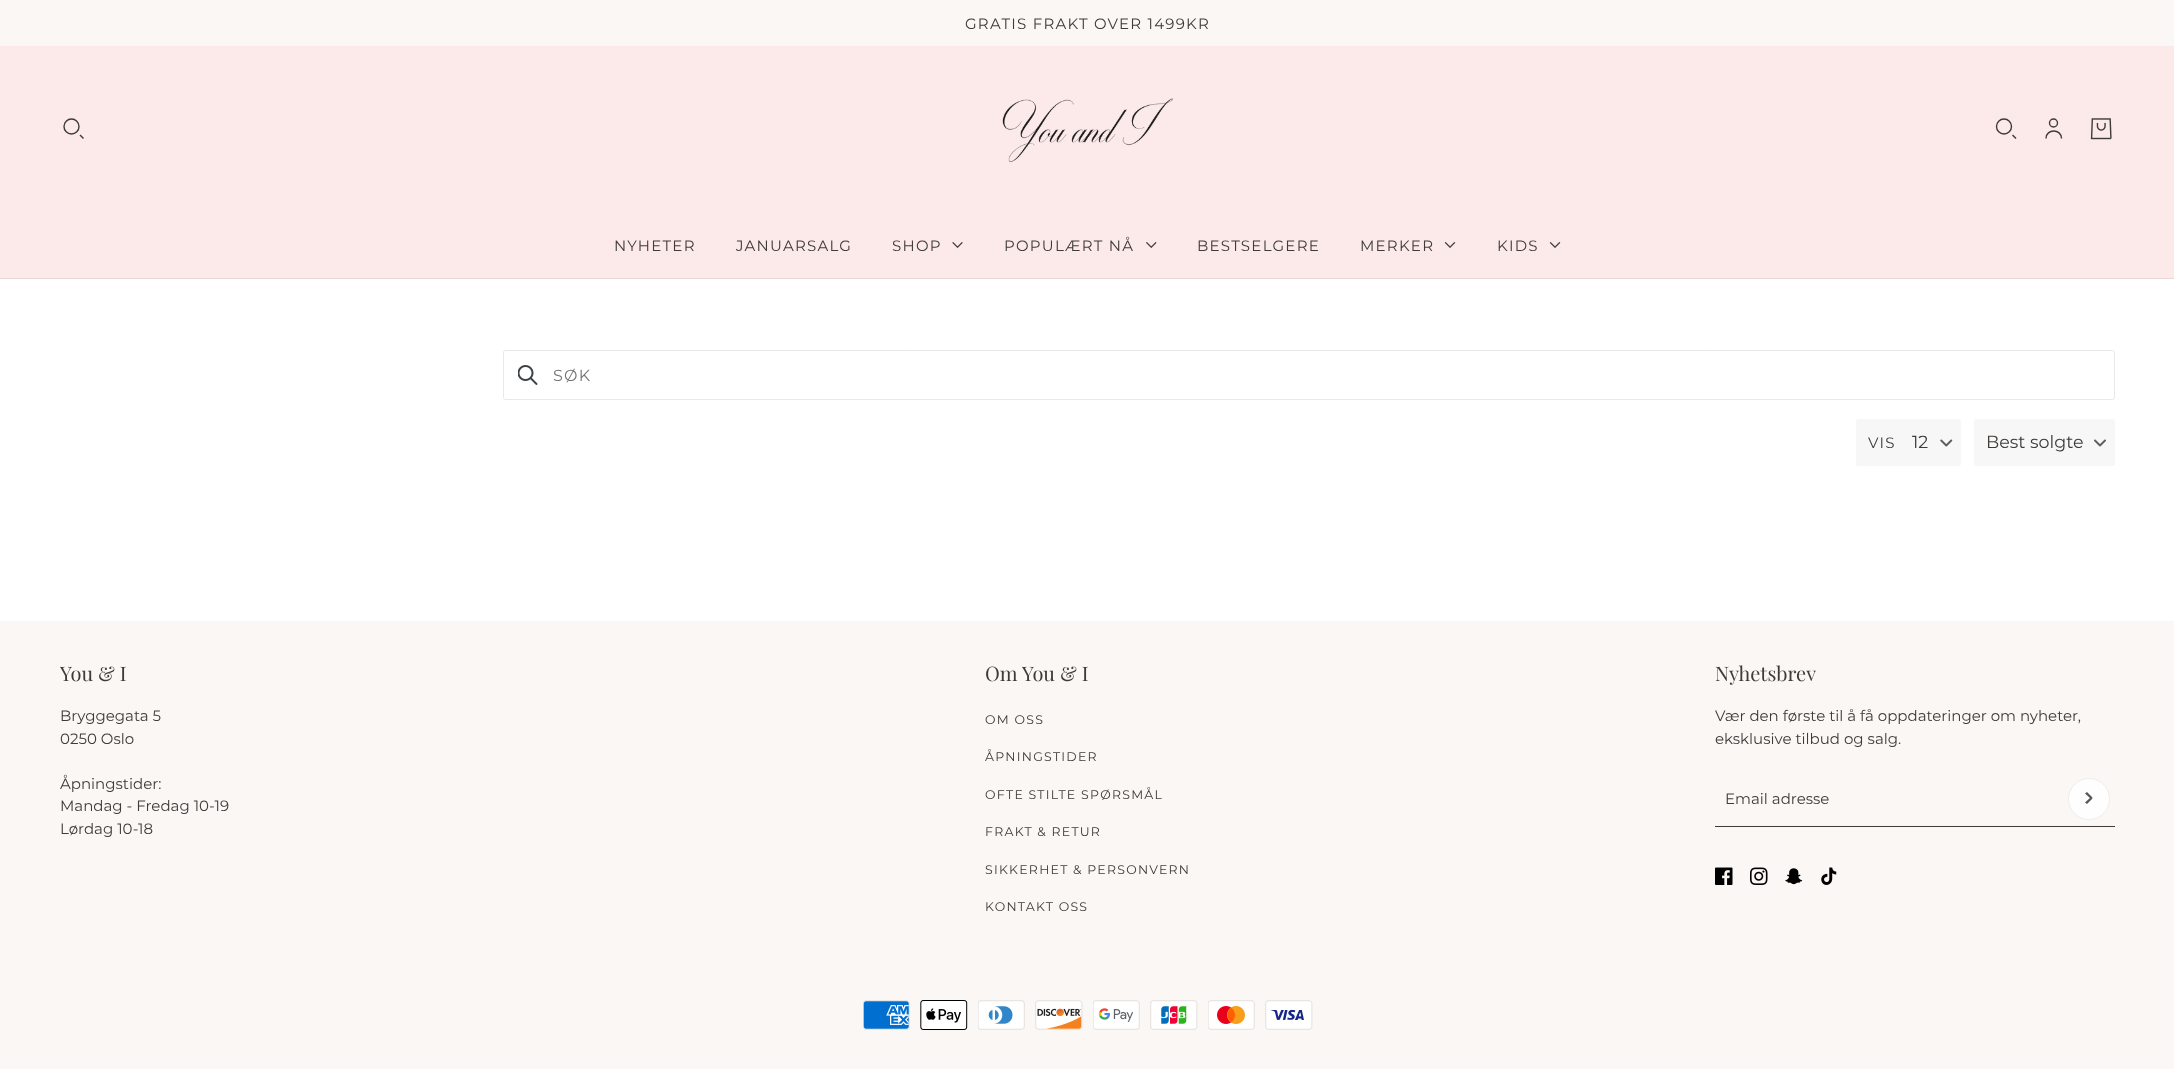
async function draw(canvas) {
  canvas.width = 2174
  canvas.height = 1069
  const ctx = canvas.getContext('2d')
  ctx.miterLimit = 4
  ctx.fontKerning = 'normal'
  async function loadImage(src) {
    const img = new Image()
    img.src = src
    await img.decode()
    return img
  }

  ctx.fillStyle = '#fff'
  ctx.fillRect(0, 0, 2174, 1069)
  ctx.fillStyle = '#faf7f5'
  ctx.fillRect(0, 0, 2174, 46)
  ctx.letterSpacing = '1.25px'
  ctx.font = '100 15px Montserrat'
  ctx.fillStyle = '#3e3b39'
  ctx.fillText('GRATIS FRAKT OVER 1499KR', 965, 29)
  ctx.fillStyle = '#fce9e9'
  ctx.fillRect(0, 46, 2174, 232)
  ctx.beginPath()
  ctx.arc(71.5, 126.5, 7.5, 0, 2 * Math.PI)
  ctx.strokeStyle = '#3e3b39'
  ctx.lineWidth = 1.4
  ctx.stroke()
  ctx.beginPath()
  ctx.moveTo(80, 135)
  ctx.lineTo(83.5, 138.5)
  ctx.stroke()
  ctx.drawImage(await loadImage('image0.png'), 1002, 98, 171, 65)
  ctx.beginPath()
  ctx.arc(2004, 126.5, 7.5, 0, 2 * Math.PI)
  ctx.stroke()
  ctx.beginPath()
  ctx.moveTo(2012.5, 135)
  ctx.lineTo(2016, 138.5)
  ctx.stroke()
  ctx.beginPath()
  ctx.arc(2053.5, 123, 4, 0, 2 * Math.PI)
  ctx.stroke()
  ctx.beginPath()
  ctx.moveTo(2046, 138.5)
  ctx.bezierCurveTo(2046, 128.5, 2061.5, 128.5, 2061.5, 138.5)
  ctx.stroke()
  ctx.drawImage(await loadImage('image1.png'), 2090, 118, 22, 22)
  ctx.fillStyle = '#3e3b39'
  ctx.fillText('NYHETER', 614, 251)
  ctx.fillText('JANUARSALG', 736, 251)
  ctx.fillText('SHOP', 892, 251)
  ctx.drawImage(await loadImage('image2.png'), 952, 242, 11, 6)
  ctx.fillText('POPULÆRT NÅ', 1004, 251)
  ctx.drawImage(await loadImage('image3.png'), 1146, 242, 11, 6)
  ctx.fillText('BESTSELGERE', 1197, 251)
  ctx.fillText('MERKER', 1360, 251)
  ctx.drawImage(await loadImage('image4.png'), 1444, 242, 12, 6)
  ctx.fillText('KIDS', 1497, 251)
  ctx.drawImage(await loadImage('image4.png'), 1549, 242, 12, 6)
  ctx.fillStyle = '#e9d8d7'
  ctx.fillRect(0, 278, 2174, 1)
  ctx.beginPath()
  ctx.roundRect(503.5, 350.5, 1611, 49, 2)
  ctx.strokeStyle = '#e8e8e8'
  ctx.lineWidth = 1
  ctx.stroke()
  ctx.drawImage(await loadImage('image5.png'), 518, 365, 20, 20)
  ctx.font = '100 16px Montserrat'
  ctx.fillStyle = '#757575'
  ctx.fillText('SØK', 553, 381)
  ctx.fillStyle = '#f7f7f7'
  ctx.beginPath()
  ctx.roundRect(1856, 419, 105, 47, 2.5)
  ctx.fill()
  ctx.font = '100 15px Montserrat'
  ctx.fillStyle = '#3e3b39'
  ctx.fillText('VIS', 1868, 448)
  ctx.letterSpacing = '0px'
  ctx.font = '100 17.5px Montserrat'
  ctx.fillText('12', 1912, 448)
  ctx.drawImage(await loadImage('image6.png'), 1940, 439, 13, 8)
  ctx.fillStyle = '#f7f7f7'
  ctx.beginPath()
  ctx.roundRect(1974, 419, 141, 47, 2.5)
  ctx.fill()
  ctx.fillStyle = '#3e3b39'
  ctx.fillText('Best solgte', 1986, 448)
  ctx.drawImage(await loadImage('image7.png'), 2094, 439, 12, 8)
  ctx.fillStyle = '#faf7f5'
  ctx.fillRect(0, 621, 2174, 448)
  ctx.font = '20px Playfair Display'
  ctx.fillStyle = '#3e3b39'
  ctx.fillText('You & I', 60, 681)
  ctx.font = '100 15px Montserrat'
  ctx.fillText('Bryggegata 5', 60, 721)
  ctx.fillText('0250 Oslo', 60, 744)
  ctx.fillText('Åpningstider:', 60, 789)
  ctx.fillText('Mandag - Fredag 10-19', 60, 811)
  ctx.fillText('Lørdag 10-18', 60, 834)
  ctx.font = '20px Playfair Display'
  ctx.fillText('Om You & I', 985, 681)
  ctx.letterSpacing = '1.25px'
  ctx.font = '100 12.5px Montserrat'
  ctx.fillText('OM OSS', 985, 724)
  ctx.fillText('ÅPNINGSTIDER', 985, 761)
  ctx.fillText('OFTE STILTE SPØRSMÅL', 985, 799)
  ctx.fillText('FRAKT & RETUR', 985, 836)
  ctx.fillText('SIKKERHET & PERSONVERN', 985, 874)
  ctx.fillText('KONTAKT OSS', 985, 911)
  ctx.letterSpacing = '0px'
  ctx.font = '20px Playfair Display'
  ctx.fillText('Nyhetsbrev', 1715, 681)
  ctx.font = '100 15px Montserrat'
  ctx.fillText('Vær den første til å få oppdateringer om nyheter,', 1715, 721)
  ctx.fillText('eksklusive tilbud og salg.', 1715, 744)
  ctx.fillRect(1715, 826, 400, 1)
  ctx.fillText('Email adresse', 1725, 804)
  ctx.fillStyle = '#fefefe'
  ctx.beginPath()
  ctx.arc(2089, 799, 21, 0, 2 * Math.PI)
  ctx.fill()
  ctx.beginPath()
  ctx.arc(2089, 799, 20.5, 0, 2 * Math.PI)
  ctx.strokeStyle = '#5a57551a'
  ctx.stroke()
  ctx.fillStyle = '#5a5755'
  ctx.beginPath()
  ctx.moveTo(2085, 802.5)
  ctx.lineTo(2091, 797)
  ctx.lineTo(2092.5, 798.5)
  ctx.lineTo(2087, 804)
  ctx.closePath()
  ctx.fill()
  ctx.beginPath()
  ctx.moveTo(2087, 792)
  ctx.lineTo(2092.5, 797.5)
  ctx.lineTo(2091, 799)
  ctx.lineTo(2085, 793.5)
  ctx.closePath()
  ctx.fill()
  ctx.drawImage(await loadImage('image8.png'), 1715, 867, 18, 18)
  ctx.drawImage(await loadImage('image9.png'), 1750, 867, 18, 18)
  ctx.drawImage(await loadImage('image10.png'), 1785, 868, 18, 17)
  ctx.drawImage(await loadImage('image11.png'), 1821, 867, 16, 18)
  ctx.drawImage(await loadImage('image12.png'), 863, 1000, 47, 30)
  ctx.drawImage(await loadImage('image13.png'), 920, 1000, 48, 30)
  ctx.drawImage(await loadImage('image14.png'), 978, 1000, 47, 30)
  ctx.drawImage(await loadImage('image15.png'), 1035, 1000, 48, 30)
  ctx.drawImage(await loadImage('image16.png'), 1093, 1000, 47, 30)
  ctx.drawImage(await loadImage('image17.png'), 1150, 1000, 48, 30)
  ctx.drawImage(await loadImage('image18.png'), 1208, 1000, 47, 30)
  ctx.drawImage(await loadImage('image19.png'), 1265, 1000, 48, 30)
}

draw(document.querySelector('canvas'))
